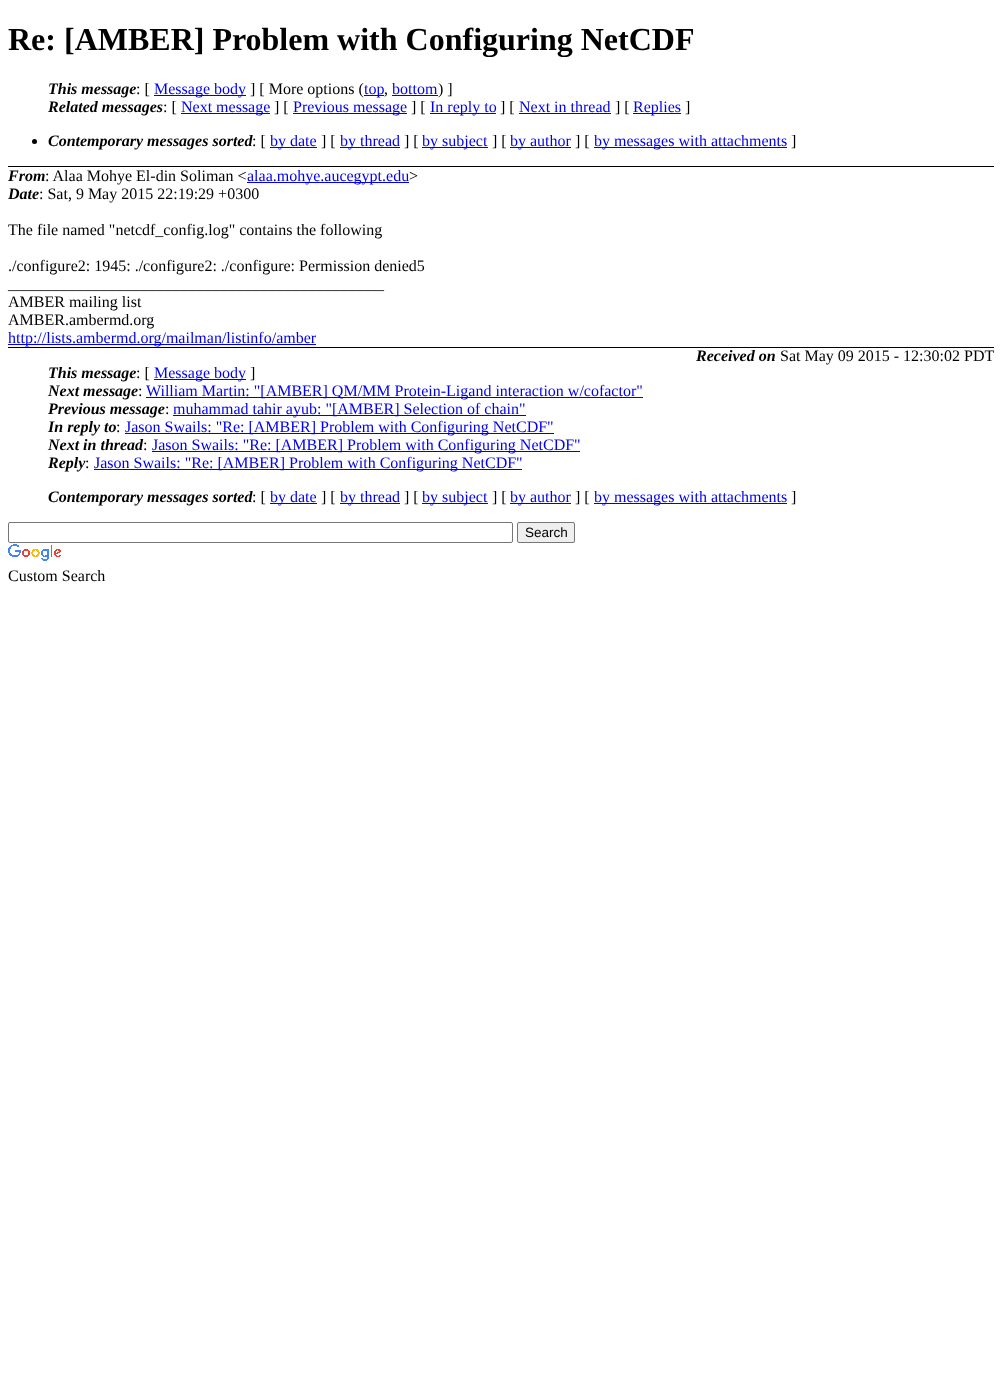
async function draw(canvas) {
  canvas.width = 1002
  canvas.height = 1398
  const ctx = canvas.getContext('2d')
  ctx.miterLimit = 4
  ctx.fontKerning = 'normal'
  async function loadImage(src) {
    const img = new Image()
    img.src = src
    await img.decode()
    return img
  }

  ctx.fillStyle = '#fff'
  ctx.fillRect(0, 0, 1002, 1398)
  ctx.fillStyle = '#000'
  ctx.fillRect(8, 166, 986, 1)
  ctx.font = 'bold 32px Liberation Serif'
  ctx.fillText('Re: [AMBER] Problem with Configuring NetCDF', 8, 50)
  ctx.font = 'italic bold 16px Liberation Serif'
  ctx.fillText('This message', 48, 94)
  ctx.font = '16px Liberation Serif'
  ctx.fillText(': [', 136, 94)
  ctx.fillStyle = '#00e'
  ctx.fillRect(154, 95, 92, 1)
  ctx.fillText('Message body', 154, 94)
  ctx.fillStyle = '#000'
  ctx.fillText('] [ More options (', 250, 94)
  ctx.fillStyle = '#00e'
  ctx.fillRect(364, 95, 20, 1)
  ctx.fillText('top', 364, 94)
  ctx.fillStyle = '#000'
  ctx.fillText(',', 384, 94)
  ctx.fillStyle = '#00e'
  ctx.fillText('bottom', 392, 94)
  ctx.fillRect(392, 95, 46, 1)
  ctx.fillStyle = '#000'
  ctx.fillText(') ]', 438, 94)
  ctx.font = 'italic bold 16px Liberation Serif'
  ctx.fillText('Related messages', 48, 112)
  ctx.font = '16px Liberation Serif'
  ctx.fillText(': [', 163, 112)
  ctx.fillStyle = '#00e'
  ctx.fillRect(181, 113, 89, 1)
  ctx.fillText('Next message', 181, 112)
  ctx.fillStyle = '#000'
  ctx.fillText('] [', 274, 112)
  ctx.fillStyle = '#00e'
  ctx.fillRect(293, 113, 114, 1)
  ctx.fillText('Previous message', 293, 112)
  ctx.fillStyle = '#000'
  ctx.fillText('] [', 411, 112)
  ctx.fillStyle = '#00e'
  ctx.fillRect(430, 113, 66, 1)
  ctx.fillText('In reply to', 430, 112)
  ctx.fillStyle = '#000'
  ctx.fillText('] [', 500, 112)
  ctx.fillStyle = '#00e'
  ctx.fillText('Next in thread', 519, 112)
  ctx.fillRect(519, 113, 92, 1)
  ctx.fillStyle = '#000'
  ctx.fillText('] [', 615, 112)
  ctx.fillStyle = '#00e'
  ctx.fillRect(633, 113, 48, 1)
  ctx.fillText('Replies', 633, 112)
  ctx.fillStyle = '#000'
  ctx.fillText(']', 685, 112)
  ctx.beginPath()
  ctx.arc(34.5, 141.5, 2.5, 0, 2 * Math.PI)
  ctx.fill()
  ctx.font = 'italic bold 16px Liberation Serif'
  ctx.fillText('Contemporary messages sorted', 48, 146)
  ctx.font = '16px Liberation Serif'
  ctx.fillText(': [', 252, 146)
  ctx.fillStyle = '#00e'
  ctx.fillRect(270, 147, 47, 1)
  ctx.fillText('by date', 270, 146)
  ctx.fillStyle = '#000'
  ctx.fillText('] [', 321, 146)
  ctx.fillStyle = '#00e'
  ctx.fillRect(340, 147, 60, 1)
  ctx.fillText('by thread', 340, 146)
  ctx.fillStyle = '#000'
  ctx.fillText('] [', 404, 146)
  ctx.fillStyle = '#00e'
  ctx.fillRect(422, 147, 66, 1)
  ctx.fillText('by subject', 422, 146)
  ctx.fillStyle = '#000'
  ctx.fillText('] [', 492, 146)
  ctx.fillStyle = '#00e'
  ctx.fillRect(510, 147, 61, 1)
  ctx.fillText('by author', 510, 146)
  ctx.fillStyle = '#000'
  ctx.fillText('] [', 575, 146)
  ctx.fillStyle = '#00e'
  ctx.fillRect(594, 147, 193, 1)
  ctx.fillText('by messages with attachments', 594, 146)
  ctx.fillStyle = '#000'
  ctx.fillText(']', 791, 146)
  ctx.font = 'italic bold 16px Liberation Serif'
  ctx.fillText('From', 8, 181)
  ctx.font = '16px Liberation Serif'
  ctx.fillText(': Alaa Mohye El-din Soliman <', 45, 181)
  ctx.fillStyle = '#00e'
  ctx.fillRect(247, 182, 162, 1)
  ctx.fillText('alaa.mohye.aucegypt.edu', 247, 181)
  ctx.fillStyle = '#000'
  ctx.fillText('>', 409, 181)
  ctx.font = 'italic bold 16px Liberation Serif'
  ctx.fillText('Date', 8, 199)
  ctx.font = '16px Liberation Serif'
  ctx.fillText(': Sat, 9 May 2015 22:19:29 +0300', 39, 199)
  ctx.fillText('The file named "netcdf_config.log" contains the following', 8, 235)
  ctx.fillText('./configure2: 1945: ./configure2: ./configure: Permission denied5', 8, 271)
  ctx.fillText('_______________________________________________', 8, 289)
  ctx.fillText('AMBER mailing list', 8, 307)
  ctx.fillText('AMBER.ambermd.org', 8, 325)
  ctx.fillStyle = '#00e'
  ctx.fillRect(8, 344, 308, 1)
  ctx.fillText('http://lists.ambermd.org/mailman/listinfo/amber', 8, 343)
  ctx.font = 'italic bold 16px Liberation Serif'
  ctx.fillStyle = '#000'
  ctx.fillText('Received on', 696, 361)
  ctx.font = '16px Liberation Serif'
  ctx.fillText('Sat May 09 2015 - 12:30:02 PDT', 780, 361)
  ctx.fillRect(8, 347, 986, 1)
  ctx.font = 'italic bold 16px Liberation Serif'
  ctx.fillText('This message', 48, 378)
  ctx.font = '16px Liberation Serif'
  ctx.fillText(': [', 136, 378)
  ctx.fillStyle = '#00e'
  ctx.fillRect(154, 379, 92, 1)
  ctx.fillText('Message body', 154, 378)
  ctx.fillStyle = '#000'
  ctx.fillText(']', 250, 378)
  ctx.font = 'italic bold 16px Liberation Serif'
  ctx.fillText('Next message', 48, 396)
  ctx.font = '16px Liberation Serif'
  ctx.fillText(':', 138, 396)
  ctx.fillStyle = '#00e'
  ctx.fillRect(146, 397, 497, 1)
  ctx.fillText('William Martin: "[AMBER] QM/MM Protein-Ligand interaction w/cofactor"', 146, 396)
  ctx.font = 'italic bold 16px Liberation Serif'
  ctx.fillStyle = '#000'
  ctx.fillText('Previous message', 48, 414)
  ctx.font = '16px Liberation Serif'
  ctx.fillText(':', 165, 414)
  ctx.fillStyle = '#00e'
  ctx.fillRect(173, 415, 353, 1)
  ctx.fillText('muhammad tahir ayub: "[AMBER] Selection of chain"', 173, 414)
  ctx.font = 'italic bold 16px Liberation Serif'
  ctx.fillStyle = '#000'
  ctx.fillText('In reply to', 48, 432)
  ctx.font = '16px Liberation Serif'
  ctx.fillText(':', 116, 432)
  ctx.fillStyle = '#00e'
  ctx.fillRect(125, 433, 429, 1)
  ctx.fillText('Jason Swails: "Re: [AMBER] Problem with Configuring NetCDF"', 125, 432)
  ctx.font = 'italic bold 16px Liberation Serif'
  ctx.fillStyle = '#000'
  ctx.fillText('Next in thread', 48, 450)
  ctx.font = '16px Liberation Serif'
  ctx.fillText(':', 143, 450)
  ctx.fillStyle = '#00e'
  ctx.fillRect(152, 451, 428, 1)
  ctx.fillText('Jason Swails: "Re: [AMBER] Problem with Configuring NetCDF"', 152, 450)
  ctx.font = 'italic bold 16px Liberation Serif'
  ctx.fillStyle = '#000'
  ctx.fillText('Reply', 48, 468)
  ctx.font = '16px Liberation Serif'
  ctx.fillText(':', 85, 468)
  ctx.fillStyle = '#00e'
  ctx.fillRect(94, 469, 428, 1)
  ctx.fillText('Jason Swails: "Re: [AMBER] Problem with Configuring NetCDF"', 94, 468)
  ctx.font = 'italic bold 16px Liberation Serif'
  ctx.fillStyle = '#000'
  ctx.fillText('Contemporary messages sorted', 48, 502)
  ctx.font = '16px Liberation Serif'
  ctx.fillText(': [', 252, 502)
  ctx.fillStyle = '#00e'
  ctx.fillRect(270, 503, 47, 1)
  ctx.fillText('by date', 270, 502)
  ctx.fillStyle = '#000'
  ctx.fillText('] [', 321, 502)
  ctx.fillStyle = '#00e'
  ctx.fillRect(340, 503, 60, 1)
  ctx.fillText('by thread', 340, 502)
  ctx.fillStyle = '#000'
  ctx.fillText('] [', 404, 502)
  ctx.fillStyle = '#00e'
  ctx.fillRect(422, 503, 66, 1)
  ctx.fillText('by subject', 422, 502)
  ctx.fillStyle = '#000'
  ctx.fillText('] [', 492, 502)
  ctx.fillStyle = '#00e'
  ctx.fillRect(510, 503, 61, 1)
  ctx.fillText('by author', 510, 502)
  ctx.fillStyle = '#000'
  ctx.fillText('] [', 575, 502)
  ctx.fillStyle = '#00e'
  ctx.fillRect(594, 503, 193, 1)
  ctx.fillText('by messages with attachments', 594, 502)
  ctx.fillStyle = '#000'
  ctx.fillText(']', 791, 502)
  ctx.beginPath()
  ctx.roundRect(8.5, 522.5, 504, 20, 1.5)
  ctx.strokeStyle = '#767676'
  ctx.stroke()
  ctx.fillStyle = '#efefef'
  ctx.beginPath()
  ctx.roundRect(517.5, 522.5, 57, 20, 1.5)
  ctx.fill()
  ctx.stroke()
  ctx.font = '13.5px Liberation Sans'
  ctx.fillStyle = '#000'
  ctx.fillText('Search', 525, 537)
  ctx.drawImage(await loadImage('image0.png'), 8, 544, 53, 17)
  ctx.font = '16px Liberation Serif'
  ctx.fillText('Custom Search', 8, 581)
}

draw(document.querySelector('canvas'))
